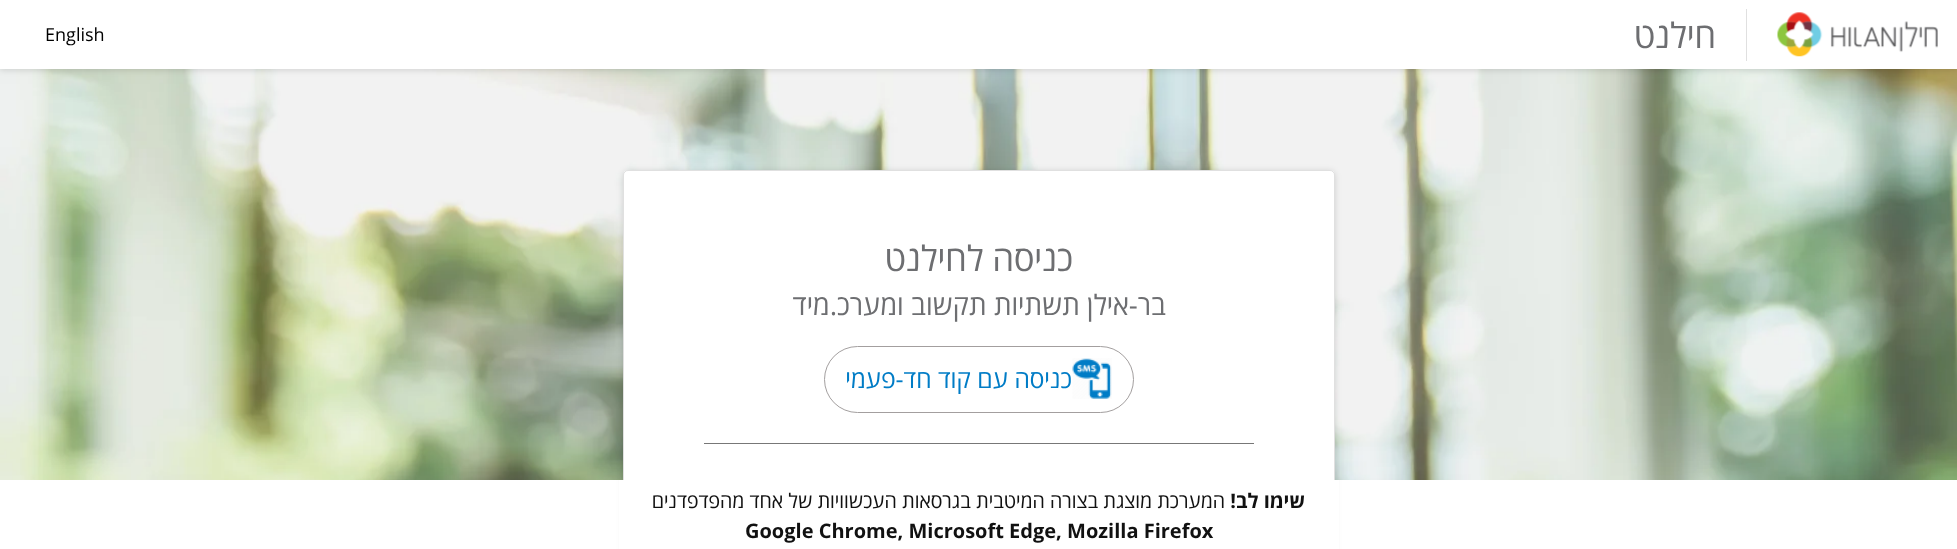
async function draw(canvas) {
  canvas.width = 1957
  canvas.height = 549
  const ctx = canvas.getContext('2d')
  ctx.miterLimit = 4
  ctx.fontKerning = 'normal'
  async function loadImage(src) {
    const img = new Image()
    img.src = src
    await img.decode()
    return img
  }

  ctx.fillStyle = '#fff'
  ctx.fillRect(0, 0, 1957, 549)
  ctx.drawImage(await loadImage('image0.png'), 0, 69, 1957, 411)
  ctx.fillStyle = '#00000024'
  ctx.filter = 'blur(3px)'
  ctx.beginPath()
  ctx.rect(0, 1, 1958, 69)
  ctx.fill()
  ctx.filter = 'none'
  ctx.fillStyle = '#fff'
  ctx.fillRect(0, 0, 1957, 69)
  ctx.drawImage(await loadImage('image1.png'), 1777, 12, 161, 45)
  ctx.fillStyle = '#e0e0e0'
  ctx.fillRect(1746, 9, 1, 52)
  ctx.direction = 'rtl'
  ctx.font = '35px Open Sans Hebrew'
  ctx.fillStyle = '#6d6e71'
  ctx.fillText('חילנט', 1716, 48)
  ctx.direction = 'ltr'
  ctx.font = '18px Open Sans Hebrew'
  ctx.fillStyle = '#000'
  ctx.fillText('English', 45, 41)
  ctx.fillStyle = '#00000024'
  ctx.filter = 'blur(3px)'
  ctx.beginPath()
  ctx.roundRect(623, 171, 712, 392, 5)
  ctx.fill()
  ctx.filter = 'none'
  ctx.fillStyle = '#fff'
  ctx.beginPath()
  ctx.roundRect(623, 170, 712, 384, 5)
  ctx.fill()
  ctx.beginPath()
  ctx.roundRect(623.5, 170.5, 711, 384, 4.5)
  ctx.strokeStyle = '#0000001f'
  ctx.stroke()
  ctx.direction = 'rtl'
  ctx.font = '35px Open Sans Hebrew'
  ctx.fillStyle = '#6d6e71'
  ctx.fillText('כניסה לחילנט', 1073, 271)
  ctx.font = '28px Open Sans Hebrew'
  ctx.fillText('בר-אילן תשתיות תקשוב ומערכ.מיד', 1166, 315)
  ctx.beginPath()
  ctx.roundRect(824.5, 346.5, 309, 66, 33)
  ctx.strokeStyle = '#a39f9f'
  ctx.stroke()
  ctx.drawImage(await loadImage('image2.png'), 1072, 358, 40, 41)
  ctx.font = '25px Open Sans Hebrew'
  ctx.fillStyle = '#007cc6'
  ctx.fillText('כניסה עם קוד חד-פעמי', 1072, 388)
  ctx.fillStyle = '#777'
  ctx.fillRect(704, 443, 550, 1)
  ctx.fillStyle = '#fff'
  ctx.fillRect(619, 480, 720, 69)
  ctx.font = 'bold 20px Open Sans Hebrew'
  ctx.fillStyle = '#111'
  ctx.fillText('שימו לב!', 1305, 508)
  ctx.font = '20px Open Sans Hebrew'
  ctx.fillText('המערכת מוצגת בצורה המיטבית בגרסאות העכשוויות של אחד מהפדפדנים', 1225, 508)
  ctx.direction = 'ltr'
  ctx.font = 'bold 20px Open Sans Hebrew'
  ctx.fillText('Google Chrome, Microsoft Edge, Mozilla Firefox', 745, 538)
}

draw(document.querySelector('canvas'))
